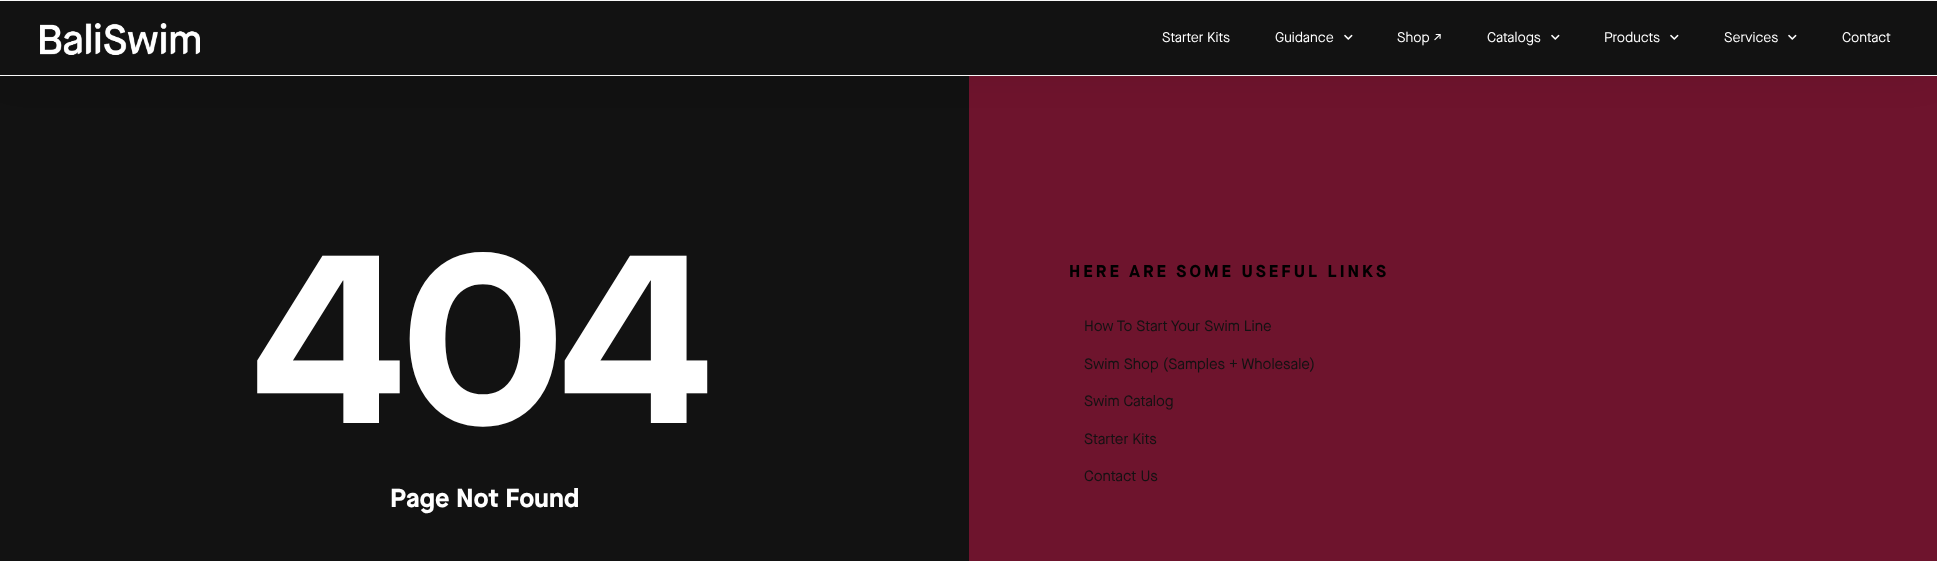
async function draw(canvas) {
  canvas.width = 1937
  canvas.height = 561
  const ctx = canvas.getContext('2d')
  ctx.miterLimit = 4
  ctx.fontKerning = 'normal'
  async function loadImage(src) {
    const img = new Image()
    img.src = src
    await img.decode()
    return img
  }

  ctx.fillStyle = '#fff'
  ctx.fillRect(0, 0, 1937, 561)
  ctx.fillStyle = '#121212'
  ctx.fillRect(0, 76, 969, 485)
  ctx.fillStyle = '#6e142d'
  ctx.fillRect(969, 76, 968, 485)
  ctx.fillStyle = '#0000000f'
  ctx.filter = 'blur(18.5px)'
  ctx.beginPath()
  ctx.rect(0, 0, 1937, 76)
  ctx.fill()
  ctx.filter = 'none'
  ctx.fillStyle = '#121212'
  ctx.fillRect(0, 1, 1937, 74)
  ctx.drawImage(await loadImage('image0.png'), 40, 23, 160, 32)
  ctx.font = '14px Maison Neue'
  ctx.fillStyle = '#fff'
  ctx.fillText('Starter Kits', 1162, 42)
  ctx.fillText('Guidance', 1275, 42)
  ctx.drawImage(await loadImage('image1.png'), 1344, 34, 9, 6)
  ctx.fillText('Shop ↗', 1397, 42)
  ctx.fillText('Catalogs', 1487, 42)
  ctx.drawImage(await loadImage('image1.png'), 1551, 34, 9, 6)
  ctx.fillText('Products', 1604, 42)
  ctx.drawImage(await loadImage('image1.png'), 1670, 34, 9, 6)
  ctx.fillText('Services', 1724, 42)
  ctx.drawImage(await loadImage('image1.png'), 1788, 34, 9, 6)
  ctx.fillText('Contact', 1842, 42)
  ctx.font = 'bold 249px Maison Neue'
  ctx.fillText('404', 256, 423)
  ctx.font = 'bold 26px Maison Neue'
  ctx.fillText('Page Not Found', 390, 507)
  ctx.letterSpacing = '3px'
  ctx.font = 'bold 17px Maison Neue'
  ctx.fillStyle = '#000'
  ctx.fillText('HERE ARE SOME USEFUL LINKS', 1069, 277)
  ctx.letterSpacing = '0px'
  ctx.font = '15px Maison Neue'
  ctx.fillStyle = '#121212'
  ctx.fillText('How To Start Your Swim Line', 1084, 331)
  ctx.fillText('Swim Shop (Samples + Wholesale)', 1084, 369)
  ctx.fillText('Swim Catalog', 1084, 406)
  ctx.fillText('Starter Kits', 1084, 444)
  ctx.fillText('Contact Us', 1084, 481)
}

draw(document.querySelector('canvas'))
